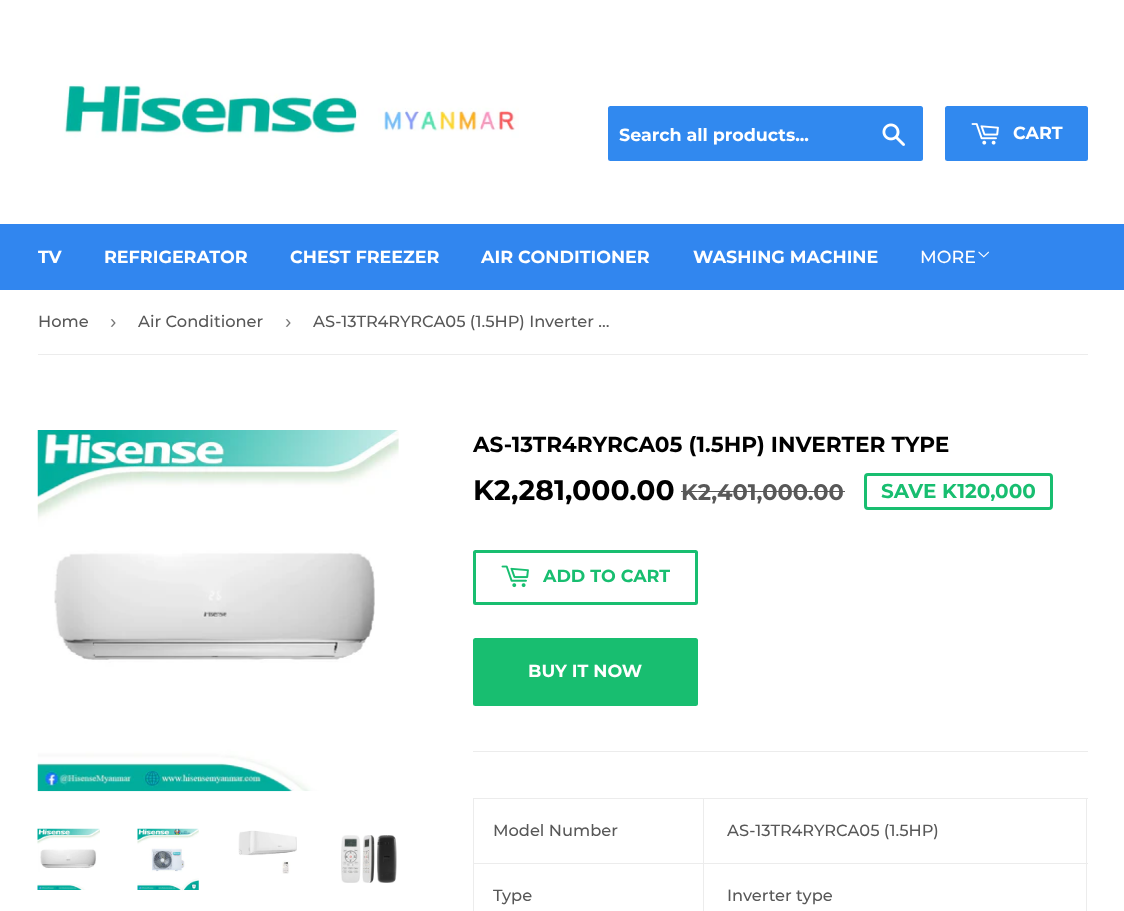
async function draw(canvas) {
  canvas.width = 1124
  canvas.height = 911
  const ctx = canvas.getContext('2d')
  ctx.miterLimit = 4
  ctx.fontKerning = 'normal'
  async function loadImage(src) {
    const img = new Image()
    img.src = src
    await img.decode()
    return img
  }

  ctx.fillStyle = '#fff'
  ctx.fillRect(0, 0, 1124, 911)
  ctx.drawImage(await loadImage('image0.png'), 64, 84, 455, 54)
  ctx.fillStyle = '#3189ef'
  ctx.beginPath()
  ctx.roundRect(608, 106, 315, 55, 2.5)
  ctx.fill()
  ctx.font = 'bold 17.5px Montserrat'
  ctx.fillStyle = '#fff'
  ctx.fillText('Search all products...', 619, 141)
  ctx.drawImage(await loadImage('image1.png'), 882, 123, 23, 23)
  ctx.fillStyle = '#3189ef'
  ctx.beginPath()
  ctx.roundRect(945, 106, 143, 55, 2.5)
  ctx.fill()
  ctx.drawImage(await loadImage('image2.png'), 971, 123, 28, 22)
  ctx.fillStyle = '#fff'
  ctx.fillText('CART', 1013, 139)
  ctx.fillStyle = '#3186ef'
  ctx.fillRect(0, 224, 1124, 66)
  ctx.fillStyle = '#fff'
  ctx.fillText('TV', 38, 263)
  ctx.fillText('REFRIGERATOR', 104, 263)
  ctx.fillText('CHEST FREEZER', 290, 263)
  ctx.fillText('AIR CONDITIONER', 481, 263)
  ctx.fillText('WASHING MACHINE', 693, 263)
  ctx.font = '500 17.5px Montserrat'
  ctx.fillText('MORE', 920, 263)
  ctx.drawImage(await loadImage('image3.png'), 978, 251, 11, 7)
  ctx.fillStyle = '#ececec'
  ctx.fillRect(38, 354, 1050, 1)
  ctx.font = '500 16.25px Montserrat'
  ctx.fillStyle = '#585858'
  ctx.fillText('Home', 38, 327)
  ctx.font = '19px Liberation Sans'
  ctx.fillStyle = '#767676'
  ctx.fillText('›', 110, 328)
  ctx.font = '500 16.25px Montserrat'
  ctx.fillStyle = '#585858'
  ctx.fillText('Air Conditioner', 138, 327)
  ctx.font = '19px Liberation Sans'
  ctx.fillStyle = '#767676'
  ctx.fillText('›', 285, 328)
  ctx.font = '500 16.25px Montserrat'
  ctx.fillStyle = '#585858'
  ctx.fillText('AS-13TR4RYRCA05 (1.5HP) Inverter …', 313, 327)
  ctx.drawImage(await loadImage('image4.png'), 37, 430, 362, 362)
  ctx.drawImage(await loadImage('image5.png'), 37, 828, 63, 62)
  ctx.drawImage(await loadImage('image6.png'), 137, 828, 62, 62)
  ctx.drawImage(await loadImage('image7.png'), 238, 830, 59, 44)
  ctx.drawImage(await loadImage('image8.png'), 341, 835, 56, 48)
  ctx.font = 'bold 21.7px Montserrat'
  ctx.fillStyle = '#000'
  ctx.fillText('AS-13TR4RYRCA05 (1.5HP) INVERTER TYPE', 473, 452)
  ctx.font = 'bold 28.25px Montserrat'
  ctx.fillText('K2,281,000.00', 473, 500)
  ctx.font = 'bold 22.5px Montserrat'
  ctx.fillStyle = '#585858'
  ctx.fillText('K2,401,000.00', 681, 500)
  ctx.fillRect(681, 491, 164, 1)
  ctx.beginPath()
  ctx.roundRect(865.5, 474.5, 186, 34, 2.5)
  ctx.strokeStyle = '#18be70'
  ctx.lineWidth = 3
  ctx.stroke()
  ctx.font = 'bold 20px Montserrat'
  ctx.fillStyle = '#18be70'
  ctx.fillText('SAVE K120,000', 881, 498)
  ctx.beginPath()
  ctx.roundRect(474.5, 551.5, 222, 52, 1)
  ctx.stroke()
  ctx.drawImage(await loadImage('image9.png'), 501, 565, 28, 23)
  ctx.font = 'bold 17.5px Montserrat'
  ctx.fillText('ADD TO CART', 543, 582)
  ctx.beginPath()
  ctx.roundRect(473, 638, 225, 68, 2.5)
  ctx.fill()
  ctx.fillStyle = '#fff'
  ctx.fillText('BUY IT NOW', 528, 677)
  ctx.fillStyle = '#ececec'
  ctx.fillRect(473, 751, 615, 1)
  ctx.fillRect(703, 798, 385, 1)
  ctx.fillRect(703, 863, 385, 1)
  ctx.fillRect(703, 863, 1, 48)
  ctx.fillRect(473, 863, 231, 1)
  ctx.fillRect(703, 798, 1, 66)
  ctx.fillRect(473, 798, 231, 1)
  ctx.fillRect(473, 863, 1, 48)
  ctx.fillRect(473, 798, 1, 66)
  ctx.font = '500 16.25px Montserrat'
  ctx.fillStyle = '#585858'
  ctx.fillText('Model Number', 493, 836)
  ctx.fillStyle = '#ececec'
  ctx.fillRect(1086, 863, 1, 48)
  ctx.fillRect(1086, 798, 1, 66)
  ctx.fillStyle = '#585858'
  ctx.fillText('AS-13TR4RYRCA05 (1.5HP)', 727, 836)
  ctx.fillText('Type', 493, 901)
  ctx.fillText('Inverter type', 727, 901)
}

draw(document.querySelector('canvas'))
